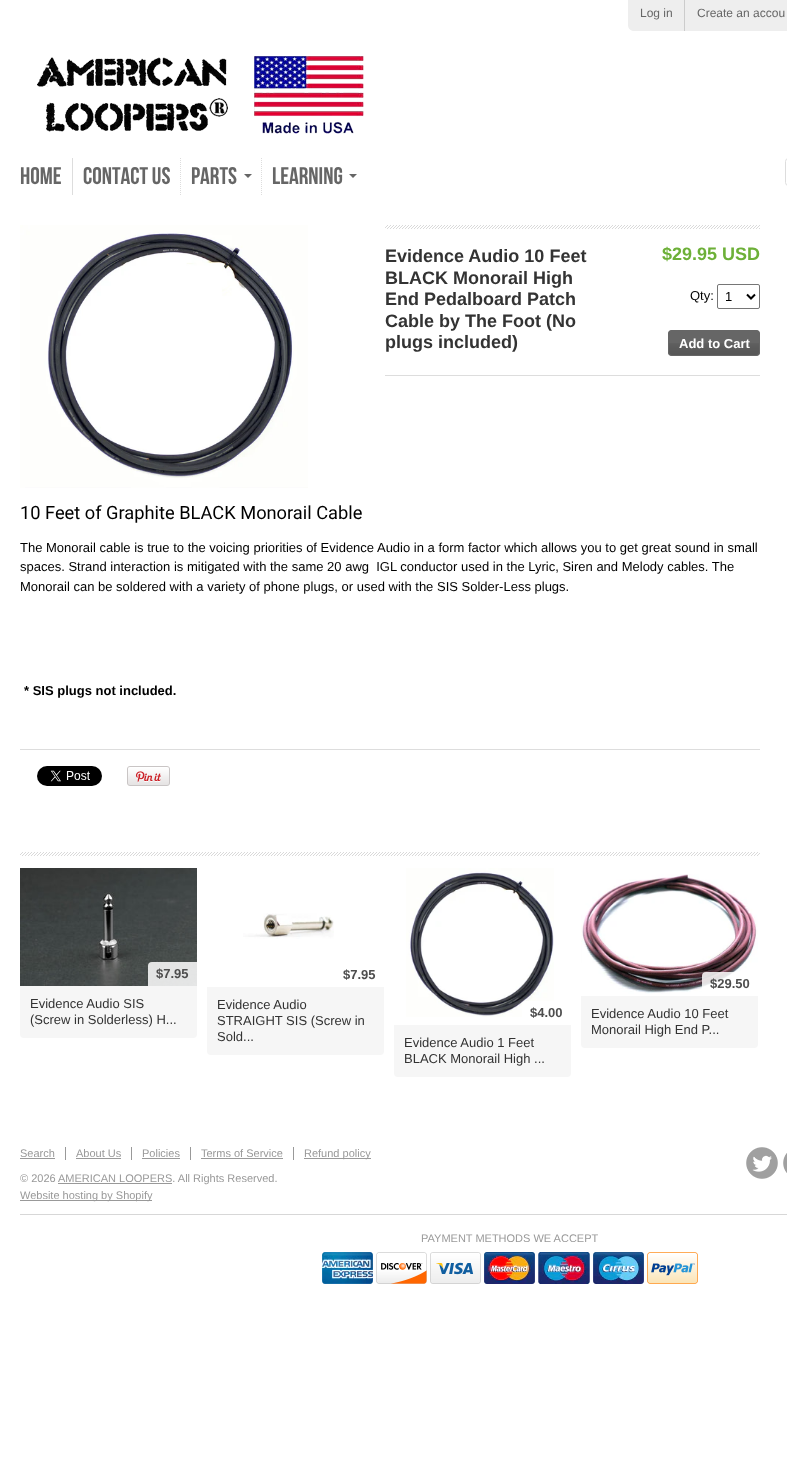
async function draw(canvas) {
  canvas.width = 787
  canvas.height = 1459
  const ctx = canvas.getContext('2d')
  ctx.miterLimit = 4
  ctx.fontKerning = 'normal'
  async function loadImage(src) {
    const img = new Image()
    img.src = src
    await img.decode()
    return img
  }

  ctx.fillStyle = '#fff'
  ctx.fillRect(0, 0, 787, 1459)
  ctx.fillStyle = '#eee'
  ctx.beginPath()
  ctx.moveTo(628, 0)
  ctx.lineTo(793, 0)
  ctx.lineTo(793, 25)
  ctx.bezierCurveTo(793, 28.5, 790.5, 31, 787, 31)
  ctx.lineTo(634, 31)
  ctx.bezierCurveTo(630.5, 31, 628, 28.5, 628, 25)
  ctx.closePath()
  ctx.fill()
  ctx.fillStyle = '#ccc'
  ctx.fillRect(684, 0, 1, 31)
  ctx.font = '12px Liberation Sans'
  ctx.fillStyle = '#666'
  ctx.fillText('Log in', 640, 17)
  ctx.fillText('Create an accou', 697, 17)
  ctx.drawImage(await loadImage('image0.png'), 37, 56, 327, 78)
  ctx.fillStyle = '#ddd'
  ctx.fillRect(72, 158, 1, 37)
  ctx.font = '24px Bebas Neue'
  ctx.fillStyle = '#666'
  ctx.fillText('Home', 20, 184)
  ctx.beginPath()
  ctx.moveTo(180.5, 158)
  ctx.lineTo(180.5, 195)
  ctx.strokeStyle = '#ddd'
  ctx.setLineDash([1, 1])
  ctx.stroke()
  ctx.fillText('Contact Us', 83, 184)
  ctx.beginPath()
  ctx.moveTo(261.5, 158)
  ctx.lineTo(261.5, 195)
  ctx.stroke()
  ctx.fillText('Parts', 191, 184)
  ctx.beginPath()
  ctx.moveTo(244, 174)
  ctx.lineTo(252, 174)
  ctx.lineTo(248, 178)
  ctx.closePath()
  ctx.fill()
  ctx.fillText('Learning', 272, 184)
  ctx.beginPath()
  ctx.moveTo(349, 174)
  ctx.lineTo(357, 174)
  ctx.lineTo(353, 178)
  ctx.closePath()
  ctx.fill()
  ctx.beginPath()
  ctx.roundRect(785.5, 158.5, 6, 27, 3.5)
  ctx.setLineDash([])
  ctx.stroke()
  ctx.drawImage(await loadImage('image1.png'), 20, 225, 288, 263)
  ctx.drawImage(await loadImage('image2.png'), 385, 225, 375, 4)
  ctx.fillStyle = '#ddd'
  ctx.fillRect(385, 375, 375, 1)
  ctx.font = 'bold 18px Liberation Sans'
  ctx.fillStyle = '#333'
  ctx.fillText('Evidence Audio 10 Feet', 385, 262)
  ctx.fillText('BLACK Monorail High', 385, 284)
  ctx.fillText('End Pedalboard Patch', 385, 305)
  ctx.fillText('Cable by The Foot (No', 385, 327)
  ctx.fillText('plugs included)', 385, 348)
  ctx.fillStyle = '#6db038'
  ctx.fillText('$29.95 USD', 662, 260)
  ctx.font = '13px Liberation Sans'
  ctx.fillStyle = '#000'
  ctx.fillText('Qty:', 690, 300)
  ctx.beginPath()
  ctx.roundRect(717.5, 284.5, 42, 24, 1.5)
  ctx.strokeStyle = '#767676'
  ctx.stroke()
  ctx.beginPath()
  ctx.moveTo(747, 294.5)
  ctx.lineTo(751, 298.5)
  ctx.lineTo(755, 294.5)
  ctx.strokeStyle = '#000'
  ctx.lineWidth = 2
  ctx.stroke()
  ctx.fillText('1', 725, 301)
  ctx.fillStyle = '#666'
  ctx.beginPath()
  ctx.roundRect(668, 330, 92, 26, 4)
  ctx.fill()
  ctx.drawImage(await loadImage('image3.png'), 668, 343, 92, 12)
  ctx.beginPath()
  ctx.roundRect(668.5, 330.5, 91, 25, 3.5)
  ctx.strokeStyle = '#666'
  ctx.lineWidth = 1
  ctx.stroke()
  ctx.font = 'bold 13px Liberation Sans'
  ctx.fillStyle = '#fff'
  ctx.fillText('Add to Cart', 679, 348)
  ctx.font = '18.25px Roboto'
  ctx.fillStyle = '#000'
  ctx.fillText('10 Feet of Graphite BLACK Monorail Cable', 20, 519)
  ctx.font = '13px Liberation Sans'
  ctx.fillText('The Monorail cable is true to the voicing priorities of Evidence Audio in a form factor which allows you to get great sound in small', 20, 552)
  ctx.fillText('spaces. Strand interaction is mitigated with the same 20 awg  IGL conductor used in the Lyric, Siren and Melody cables. The', 20, 571)
  ctx.fillText('Monorail can be soldered with a variety of phone plugs, or used with the SIS Solder-Less plugs.', 20, 591)
  ctx.font = 'bold 13px Liberation Sans'
  ctx.fillText('* SIS plugs not included.', 24, 695)
  ctx.fillStyle = '#ddd'
  ctx.fillRect(20, 749, 740, 1)
  ctx.drawImage(await loadImage('image4.png'), 37, 766, 65, 20)
  ctx.drawImage(await loadImage('image5.png'), 127, 766, 43, 20)
  ctx.drawImage(await loadImage('image6.png'), 20, 852, 740, 4)
  ctx.drawImage(await loadImage('image7.png'), 20, 868, 177, 118)
  ctx.fillStyle = '#ffffffd9'
  ctx.beginPath()
  ctx.roundRect(148, 962, 49, 24, [4, 0, 0, 0])
  ctx.fill()
  ctx.fillStyle = '#4e4e4e'
  ctx.fillText('$7.95', 156, 978)
  ctx.fillStyle = '#f6f6f6'
  ctx.beginPath()
  ctx.roundRect(20, 986, 177, 52, [0, 0, 4, 4])
  ctx.fill()
  ctx.font = '13px Liberation Sans'
  ctx.fillStyle = '#333'
  ctx.fillText('Evidence Audio SIS', 30, 1008)
  ctx.fillText('(Screw in Solderless) H...', 30, 1024)
  ctx.drawImage(await loadImage('image8.png'), 243, 913, 91, 26)
  ctx.font = 'bold 13px Liberation Sans'
  ctx.fillStyle = '#4e4e4e'
  ctx.fillText('$7.95', 343, 979)
  ctx.fillStyle = '#f6f6f6'
  ctx.beginPath()
  ctx.roundRect(207, 987, 177, 68, [0, 0, 4, 4])
  ctx.fill()
  ctx.font = '13px Liberation Sans'
  ctx.fillStyle = '#333'
  ctx.fillText('Evidence Audio', 217, 1009)
  ctx.fillText('STRAIGHT SIS (Screw in', 217, 1025)
  ctx.fillText('Sold...', 217, 1041)
  ctx.drawImage(await loadImage('image9.png'), 406, 868, 148, 149)
  ctx.fillStyle = '#ffffffd9'
  ctx.beginPath()
  ctx.roundRect(522, 1001, 49, 24, [4, 0, 0, 0])
  ctx.fill()
  ctx.font = 'bold 13px Liberation Sans'
  ctx.fillStyle = '#4e4e4e'
  ctx.fillText('$4.00', 530, 1017)
  ctx.fillStyle = '#f6f6f6'
  ctx.beginPath()
  ctx.roundRect(394, 1025, 177, 52, [0, 0, 4, 4])
  ctx.fill()
  ctx.font = '13px Liberation Sans'
  ctx.fillStyle = '#333'
  ctx.fillText('Evidence Audio 1 Feet', 404, 1047)
  ctx.fillText('BLACK Monorail High ...', 404, 1063)
  ctx.drawImage(await loadImage('image10.png'), 581, 874, 177, 120)
  ctx.fillStyle = '#ffffffd9'
  ctx.beginPath()
  ctx.roundRect(702, 972, 56, 24, [4, 0, 0, 0])
  ctx.fill()
  ctx.font = 'bold 13px Liberation Sans'
  ctx.fillStyle = '#4e4e4e'
  ctx.fillText('$29.50', 710, 988)
  ctx.fillStyle = '#f6f6f6'
  ctx.beginPath()
  ctx.roundRect(581, 996, 177, 52, [0, 0, 4, 4])
  ctx.fill()
  ctx.font = '13px Liberation Sans'
  ctx.fillStyle = '#333'
  ctx.fillText('Evidence Audio 10 Feet', 591, 1018)
  ctx.fillText('Monorail High End P...', 591, 1034)
  ctx.font = '11px Liberation Sans'
  ctx.fillStyle = '#999'
  ctx.fillText('Search', 20, 1157)
  ctx.fillRect(20, 1158, 35, 1)
  ctx.fillRect(65, 1147, 1, 13)
  ctx.fillText('About Us', 76, 1157)
  ctx.fillRect(76, 1158, 45, 1)
  ctx.fillRect(131, 1147, 1, 13)
  ctx.fillText('Policies', 142, 1157)
  ctx.fillRect(142, 1158, 38, 1)
  ctx.fillRect(190, 1147, 1, 13)
  ctx.fillText('Terms of Service', 201, 1157)
  ctx.fillRect(201, 1158, 82, 1)
  ctx.fillRect(293, 1147, 1, 13)
  ctx.fillRect(304, 1158, 67, 1)
  ctx.fillText('Refund policy', 304, 1157)
  ctx.fillText('© 2026', 20, 1182)
  ctx.fillRect(58, 1183, 114, 1)
  ctx.fillText('AMERICAN LOOPERS. All Rights Reserved.', 58, 1182)
  ctx.fillRect(20, 1200, 132, 1)
  ctx.fillText('Website hosting by Shopify', 20, 1199)
  ctx.drawImage(await loadImage('image11.png'), 746, 1147, 32, 32)
  ctx.drawImage(await loadImage('image12.png'), 783, 1153, 4, 20)
  ctx.fillStyle = '#d7d7d7'
  ctx.fillRect(20, 1214, 767, 1)
  ctx.fillStyle = '#999'
  ctx.fillText('PAYMENT METHODS WE ACCEPT', 421, 1242)
  ctx.drawImage(await loadImage('image13.png'), 322, 1252, 51, 32)
  ctx.drawImage(await loadImage('image14.png'), 376, 1252, 51, 32)
  ctx.drawImage(await loadImage('image15.png'), 430, 1252, 51, 32)
  ctx.drawImage(await loadImage('image16.png'), 484, 1252, 51, 32)
  ctx.drawImage(await loadImage('image17.png'), 538, 1252, 52, 32)
  ctx.drawImage(await loadImage('image18.png'), 593, 1252, 51, 32)
  ctx.drawImage(await loadImage('image19.png'), 647, 1252, 51, 32)
}

draw(document.querySelector('canvas'))
